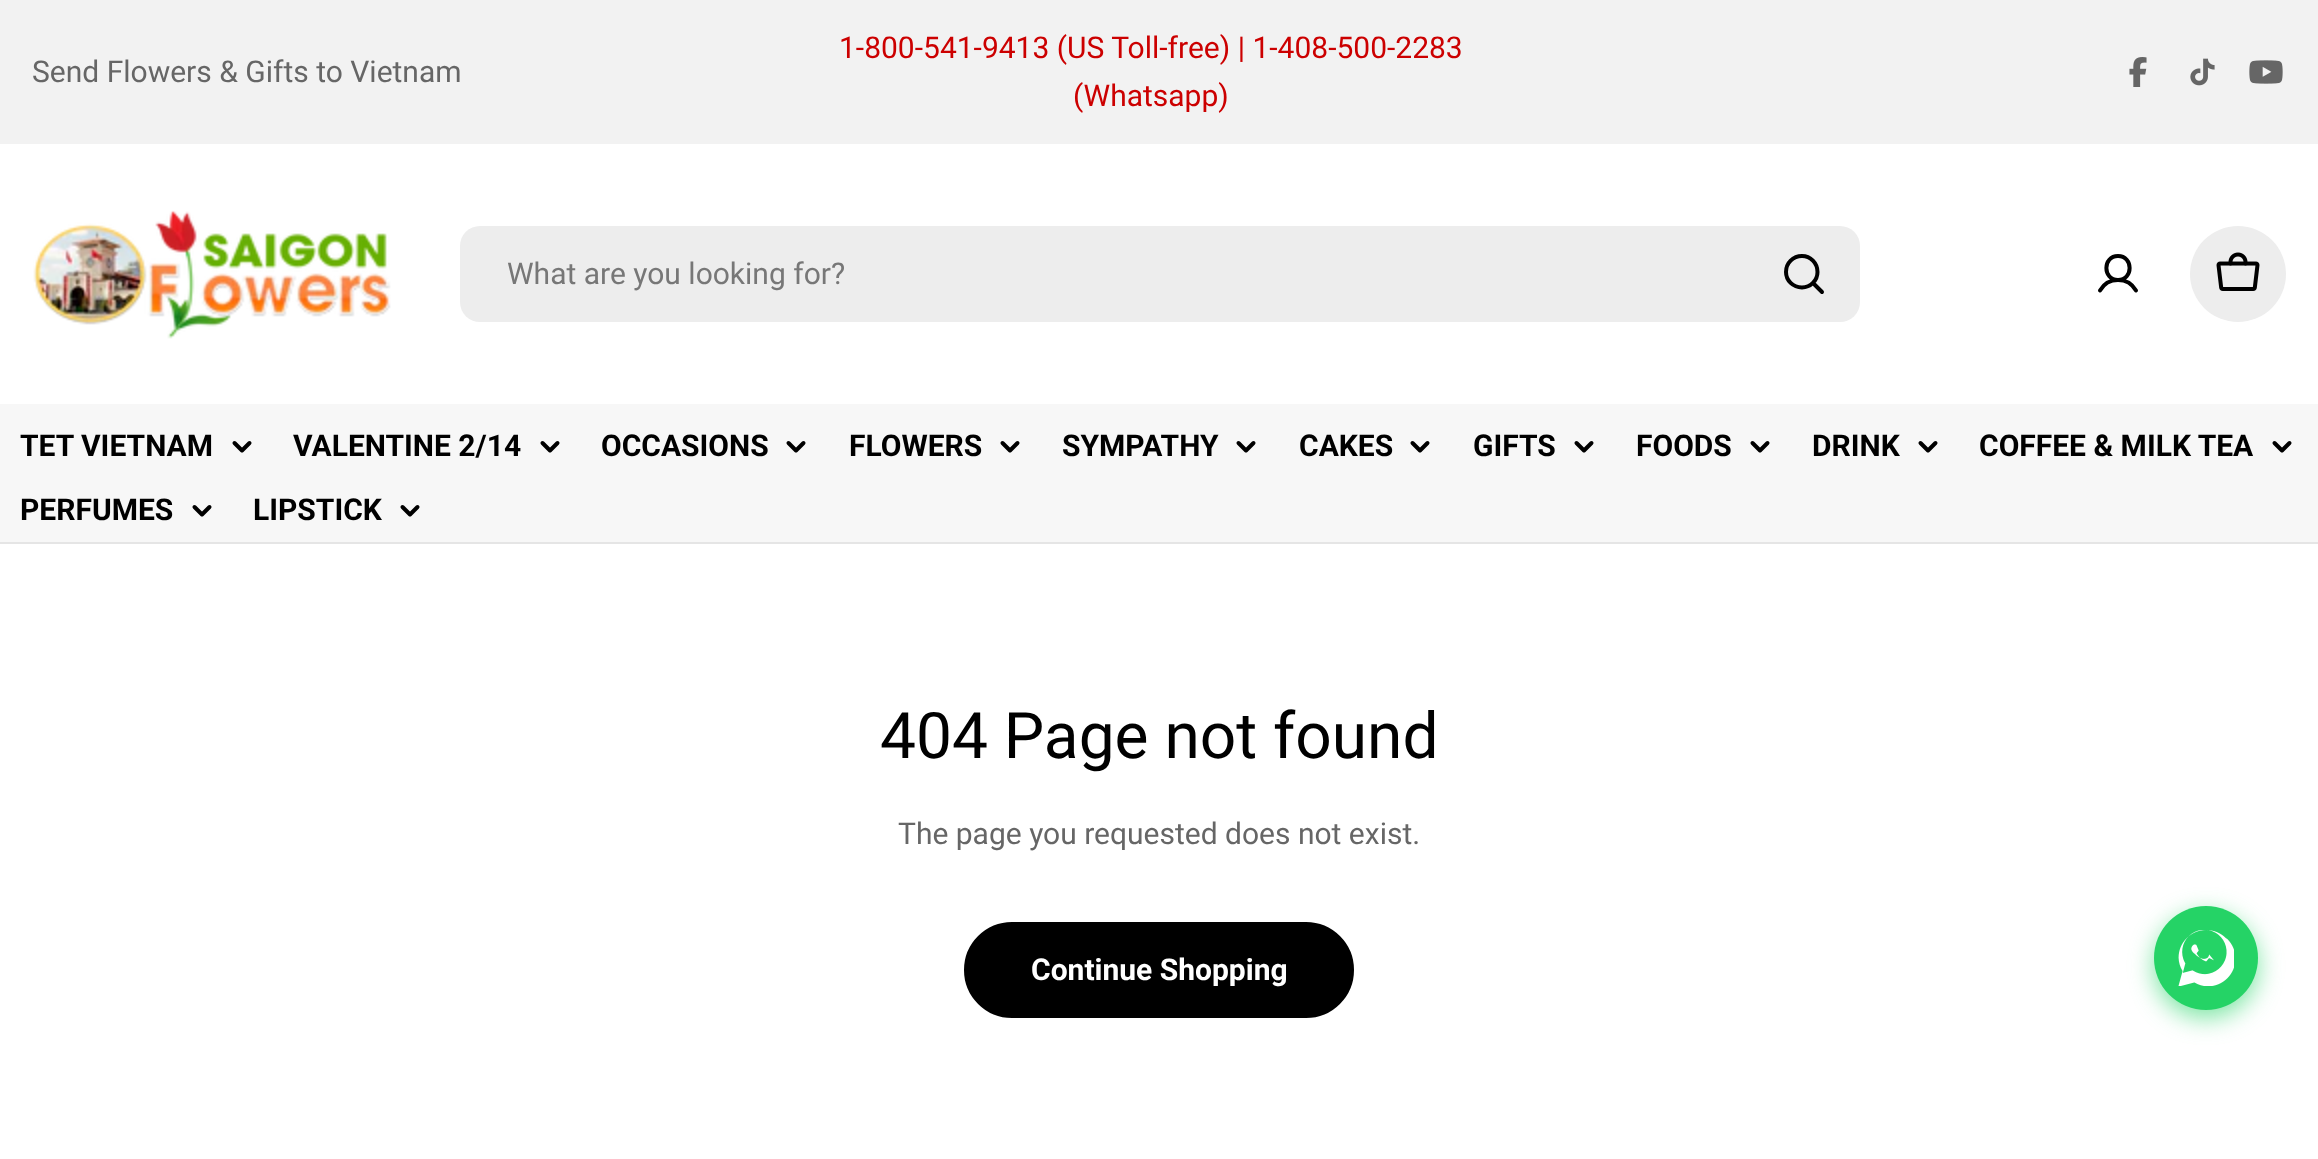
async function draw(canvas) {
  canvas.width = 2318
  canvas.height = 1159
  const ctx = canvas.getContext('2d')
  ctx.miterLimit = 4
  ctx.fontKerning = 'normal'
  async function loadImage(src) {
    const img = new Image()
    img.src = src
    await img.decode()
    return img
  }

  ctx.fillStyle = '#fff'
  ctx.fillRect(0, 0, 2318, 1159)
  ctx.fillStyle = '#f2f2f2'
  ctx.fillRect(0, 0, 2318, 144)
  ctx.font = '30px Roboto'
  ctx.fillStyle = '#666'
  ctx.fillText('Send Flowers & Gifts to Vietnam', 32, 82)
  ctx.fillStyle = '#c00'
  ctx.fillText('1-800-541-9413 (US Toll-free) | 1-408-500-2283', 839, 58)
  ctx.fillText('(Whatsapp)', 1073, 106)
  ctx.drawImage(await loadImage('image0.png'), 2129, 57, 18, 30)
  ctx.drawImage(await loadImage('image1.png'), 2190, 58, 25, 28)
  ctx.drawImage(await loadImage('image2.png'), 2249, 60, 34, 24)
  ctx.drawImage(await loadImage('image3.png'), 33, 210, 358, 129)
  ctx.fillStyle = '#ededed'
  ctx.beginPath()
  ctx.roundRect(460, 226, 1400, 96, 20)
  ctx.fill()
  ctx.fillStyle = '#777'
  ctx.fillText('What are you looking for?', 507, 284)
  ctx.beginPath()
  ctx.moveTo(1802, 287.5)
  ctx.bezierCurveTo(1810.5, 287.5, 1817.5, 280.5, 1817.5, 272)
  ctx.bezierCurveTo(1817.5, 263, 1810.5, 256, 1802, 256)
  ctx.bezierCurveTo(1793, 256, 1786, 263, 1786, 272)
  ctx.bezierCurveTo(1786, 280.5, 1793, 287.5, 1802, 287.5)
  ctx.closePath()
  ctx.moveTo(1813, 283)
  ctx.lineTo(1822, 292)
  ctx.strokeStyle = '#000'
  ctx.lineWidth = 4
  ctx.lineCap = 'round'
  ctx.lineJoin = 'round'
  ctx.stroke()
  ctx.beginPath()
  ctx.moveTo(2118, 280)
  ctx.bezierCurveTo(2133.5, 280, 2133.5, 256, 2118, 256)
  ctx.bezierCurveTo(2102.5, 256, 2102.5, 280, 2118, 280)
  ctx.closePath()
  ctx.moveTo(2100, 290.5)
  ctx.bezierCurveTo(2108, 276.5, 2128, 276.5, 2136, 290.5)
  ctx.stroke()
  ctx.fillStyle = '#ededed'
  ctx.beginPath()
  ctx.arc(2238, 274, 48, 0, 2 * Math.PI)
  ctx.fill()
  ctx.drawImage(await loadImage('image4.png'), 2216, 252, 44, 39)
  ctx.fillStyle = '#f7f7f7'
  ctx.fillRect(0, 404, 2318, 138)
  ctx.fillStyle = '#e5e5e5'
  ctx.fillRect(0, 542, 2318, 2)
  ctx.font = 'bold 30px Roboto'
  ctx.fillStyle = '#000'
  ctx.fillText('TET VIETNAM', 20, 456)
  ctx.beginPath()
  ctx.moveTo(249.5, 443)
  ctx.lineTo(242, 450.5)
  ctx.lineTo(234.5, 443)
  ctx.stroke()
  ctx.fillText('VALENTINE 2/14', 293, 456)
  ctx.beginPath()
  ctx.moveTo(557.5, 443)
  ctx.lineTo(550, 450.5)
  ctx.lineTo(542.5, 443)
  ctx.stroke()
  ctx.fillText('OCCASIONS', 601, 456)
  ctx.beginPath()
  ctx.moveTo(803.5, 443)
  ctx.lineTo(796, 450.5)
  ctx.lineTo(788.5, 443)
  ctx.stroke()
  ctx.fillText('FLOWERS', 849, 456)
  ctx.beginPath()
  ctx.moveTo(1017.5, 443)
  ctx.lineTo(1010, 450.5)
  ctx.lineTo(1002.5, 443)
  ctx.stroke()
  ctx.fillText('SYMPATHY', 1062, 456)
  ctx.beginPath()
  ctx.moveTo(1253.5, 443)
  ctx.lineTo(1246, 450.5)
  ctx.lineTo(1238.5, 443)
  ctx.stroke()
  ctx.fillText('CAKES', 1299, 456)
  ctx.beginPath()
  ctx.moveTo(1427.5, 443)
  ctx.lineTo(1420, 450.5)
  ctx.lineTo(1412.5, 443)
  ctx.stroke()
  ctx.fillText('GIFTS', 1473, 456)
  ctx.beginPath()
  ctx.moveTo(1591.5, 443)
  ctx.lineTo(1584, 450.5)
  ctx.lineTo(1576.5, 443)
  ctx.stroke()
  ctx.fillText('FOODS', 1636, 456)
  ctx.beginPath()
  ctx.moveTo(1767.5, 443)
  ctx.lineTo(1760, 450.5)
  ctx.lineTo(1752.5, 443)
  ctx.stroke()
  ctx.fillText('DRINK', 1812, 456)
  ctx.beginPath()
  ctx.moveTo(1935.5, 443)
  ctx.lineTo(1928, 450.5)
  ctx.lineTo(1920.5, 443)
  ctx.stroke()
  ctx.fillText('COFFEE & MILK TEA', 1979, 456)
  ctx.beginPath()
  ctx.moveTo(2289.5, 443)
  ctx.lineTo(2282, 450.5)
  ctx.lineTo(2274.5, 443)
  ctx.stroke()
  ctx.fillText('PERFUMES', 20, 520)
  ctx.beginPath()
  ctx.moveTo(209.5, 507)
  ctx.lineTo(202, 514.5)
  ctx.lineTo(194.5, 507)
  ctx.stroke()
  ctx.fillText('LIPSTICK', 253, 520)
  ctx.beginPath()
  ctx.moveTo(417.5, 507)
  ctx.lineTo(410, 514.5)
  ctx.lineTo(402.5, 507)
  ctx.stroke()
  ctx.font = '64px Roboto'
  ctx.fillText('404 Page not found', 880, 758)
  ctx.font = '30px Roboto'
  ctx.fillStyle = '#666'
  ctx.fillText('The page you requested does not exist.', 898, 844)
  ctx.fillStyle = '#000'
  ctx.beginPath()
  ctx.roundRect(965, 923, 388, 94, 47)
  ctx.fill()
  ctx.lineWidth = 2
  ctx.lineJoin = 'miter'
  ctx.stroke()
  ctx.font = 'bold 30px Roboto'
  ctx.fillStyle = '#fff'
  ctx.fillText('Continue Shopping', 1031, 980)
  ctx.fillStyle = '#25d36699'
  ctx.filter = 'blur(12px)'
  ctx.beginPath()
  ctx.roundRect(2154, 914, 104, 104, 52)
  ctx.fill()
  ctx.filter = 'none'
  ctx.fillStyle = '#25d366'
  ctx.beginPath()
  ctx.arc(2206, 958, 52, 0, 2 * Math.PI)
  ctx.fill()
  ctx.drawImage(await loadImage('image5.png'), 2178, 930, 56, 56)
}

draw(document.querySelector('canvas'))
